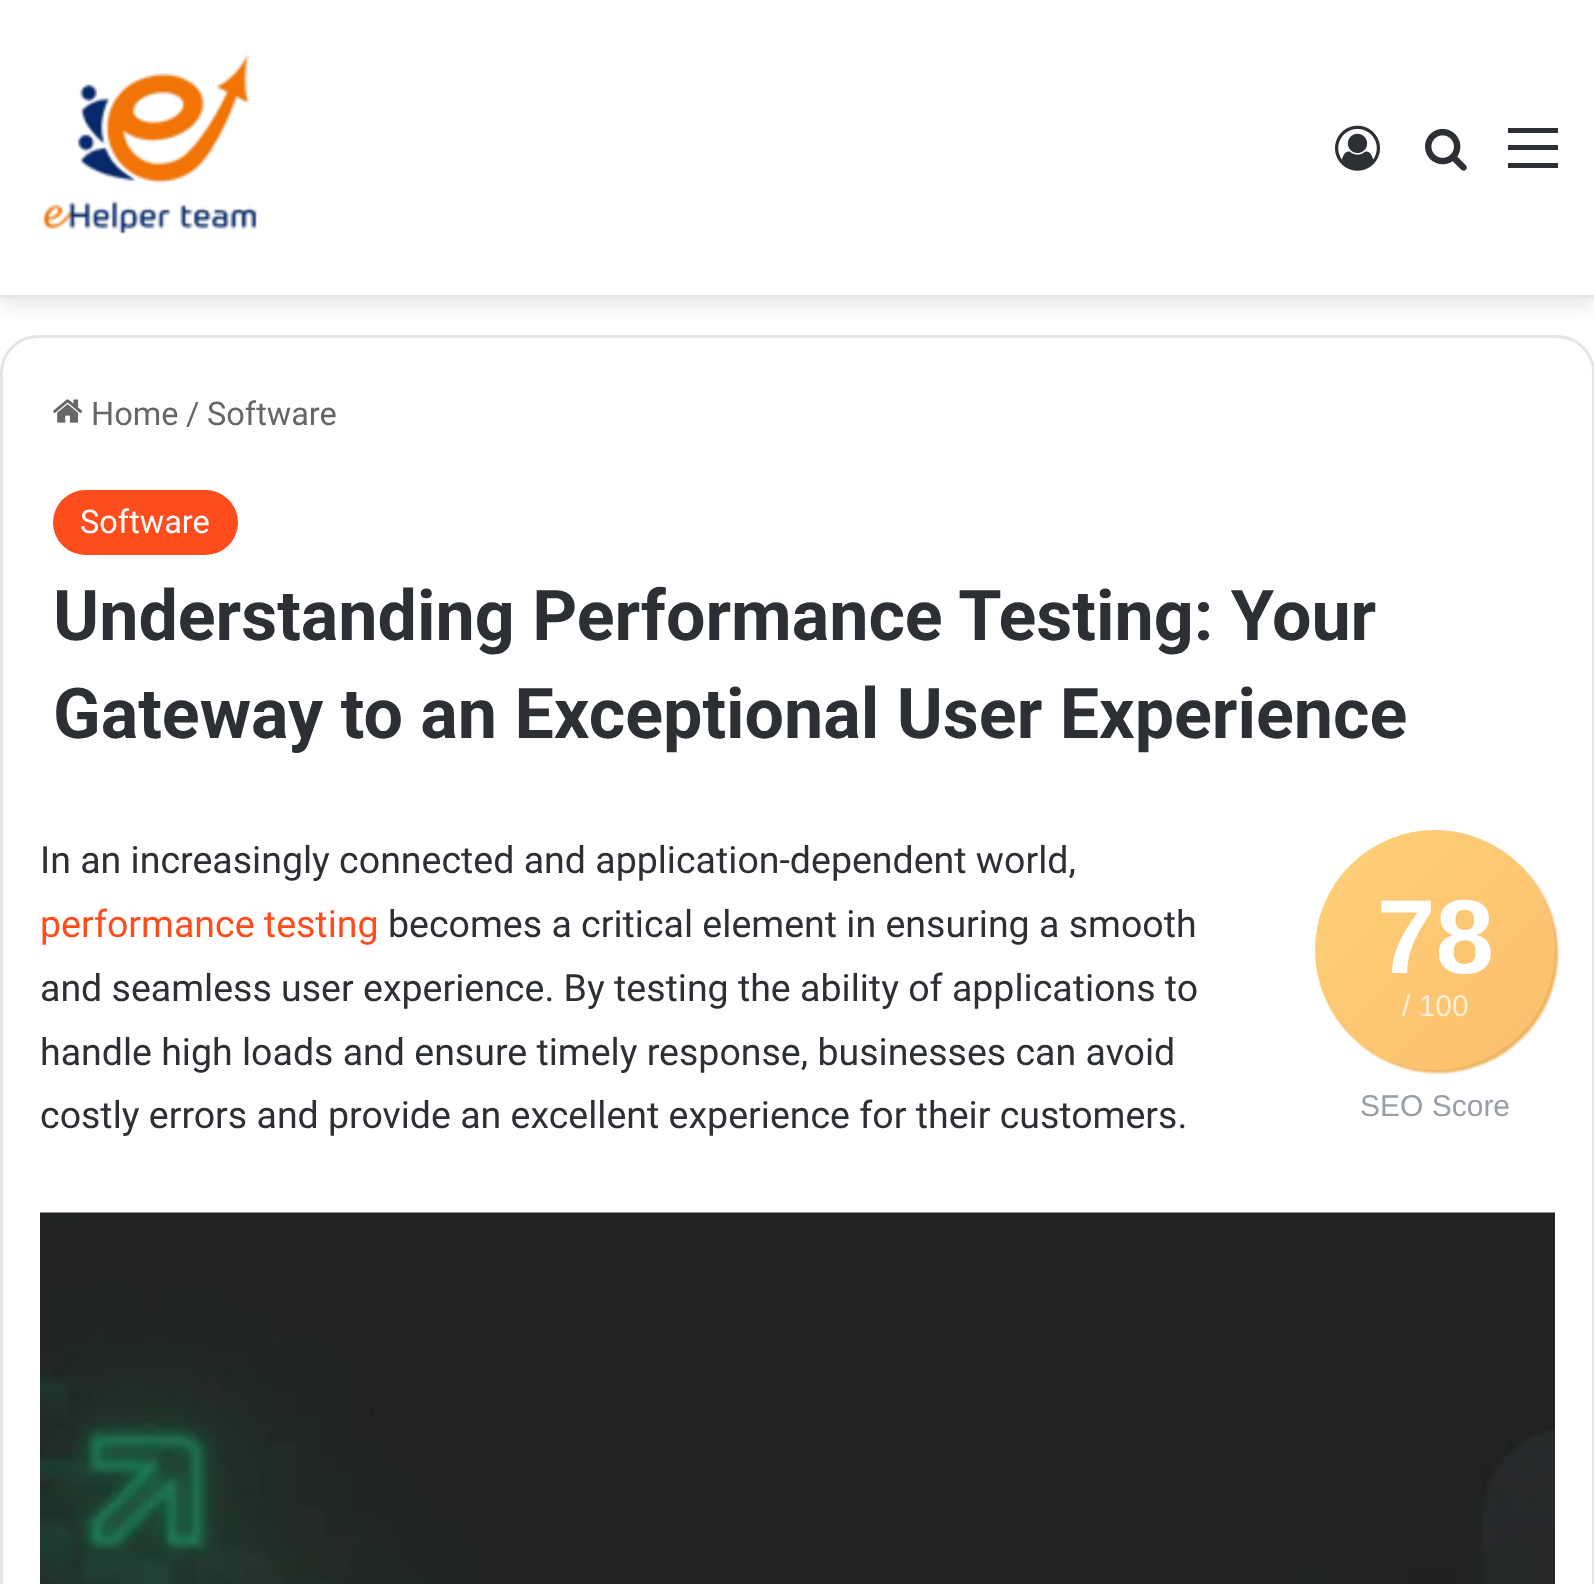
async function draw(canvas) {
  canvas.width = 1594
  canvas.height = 1584
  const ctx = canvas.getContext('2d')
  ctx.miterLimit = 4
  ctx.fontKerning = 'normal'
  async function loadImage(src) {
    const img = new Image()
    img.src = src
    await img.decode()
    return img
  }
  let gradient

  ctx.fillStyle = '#fff'
  ctx.fillRect(0, 0, 1594, 1584)
  ctx.fillStyle = '#0000001a'
  ctx.filter = 'blur(9px)'
  ctx.beginPath()
  ctx.rect(0, 8, 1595, 297)
  ctx.fill()
  ctx.filter = 'none'
  ctx.fillStyle = '#fff'
  ctx.fillRect(0, 0, 1594, 295)
  ctx.fillStyle = '#e6e6e6'
  ctx.fillRect(0, 295, 1594, 3)
  ctx.drawImage(await loadImage('image0.png'), 43, 55, 214, 179)
  ctx.drawImage(await loadImage('image1.png'), 1335, 125, 45, 46)
  ctx.drawImage(await loadImage('image2.png'), 1425, 128, 42, 43)
  ctx.fillStyle = '#2c2f34'
  ctx.fillRect(1508, 145, 50, 5)
  ctx.fillRect(1508, 128, 50, 5)
  ctx.fillRect(1508, 163, 50, 5)
  ctx.beginPath()
  ctx.roundRect(1.5, 336.5, 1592, 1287, 36.5)
  ctx.strokeStyle = '#e5e5e5'
  ctx.lineWidth = 3
  ctx.stroke()
  ctx.drawImage(await loadImage('image3.png'), 53, 399, 30, 24)
  ctx.font = '32.5px Roboto'
  ctx.fillStyle = '#666'
  ctx.fillText('Home', 91, 425)
  ctx.fillText('/', 186, 425)
  ctx.fillText('Software', 207, 425)
  ctx.fillStyle = '#fe4c1c'
  ctx.beginPath()
  ctx.roundRect(53, 490, 185, 65, 32.5)
  ctx.fill()
  ctx.fillStyle = '#fff'
  ctx.fillText('Software', 80, 533)
  ctx.font = 'bold 70px Roboto'
  ctx.fillStyle = '#2c2f34'
  ctx.fillText('Understanding Performance Testing: Your', 53, 640)
  ctx.fillText('Gateway to an Exceptional User Experience', 53, 738)
  ctx.font = '37.5px Roboto'
  ctx.fillText('In an increasingly connected and application-dependent world,', 40, 873)
  ctx.fillStyle = '#fe4c1c'
  ctx.fillText('performance testing', 40, 937)
  ctx.fillStyle = '#2c2f34'
  ctx.fillText('becomes a critical element in ensuring a smooth', 388, 937)
  ctx.fillText('and seamless user experience. By testing the ability of applications to', 40, 1001)
  ctx.fillText('handle high loads and ensure timely response, businesses can avoid', 40, 1065)
  ctx.fillText('costly errors and provide an excellent experience for their customers.', 40, 1128)
  ctx.fillStyle = '#efb463'
  ctx.filter = 'blur(1px)'
  ctx.beginPath()
  ctx.roundRect(1318, 833, 240, 240, 120)
  ctx.fill()
  ctx.filter = 'none'
  gradient = ctx.createLinearGradient(1315, 830, 1555, 1070)
  gradient.addColorStop(0, '#fdd07a')
  gradient.addColorStop(1, '#fcbe6c')
  ctx.fillStyle = gradient
  ctx.beginPath()
  ctx.arc(1435, 950, 120, 0, 2 * Math.PI)
  ctx.fill()
  ctx.font = 'bold 105px Liberation Sans'
  ctx.fillStyle = '#fff'
  ctx.fillText('78', 1377, 973)
  ctx.font = '30px Liberation Sans'
  ctx.fillStyle = '#feeed4'
  ctx.fillText('/ 100', 1402, 1016)
  ctx.fillStyle = '#979ea5'
  ctx.fillText('SEO Score', 1360, 1116)
  ctx.drawImage(await loadImage('image4.png'), 40, 1212, 1515, 372)
}

draw(document.querySelector('canvas'))
